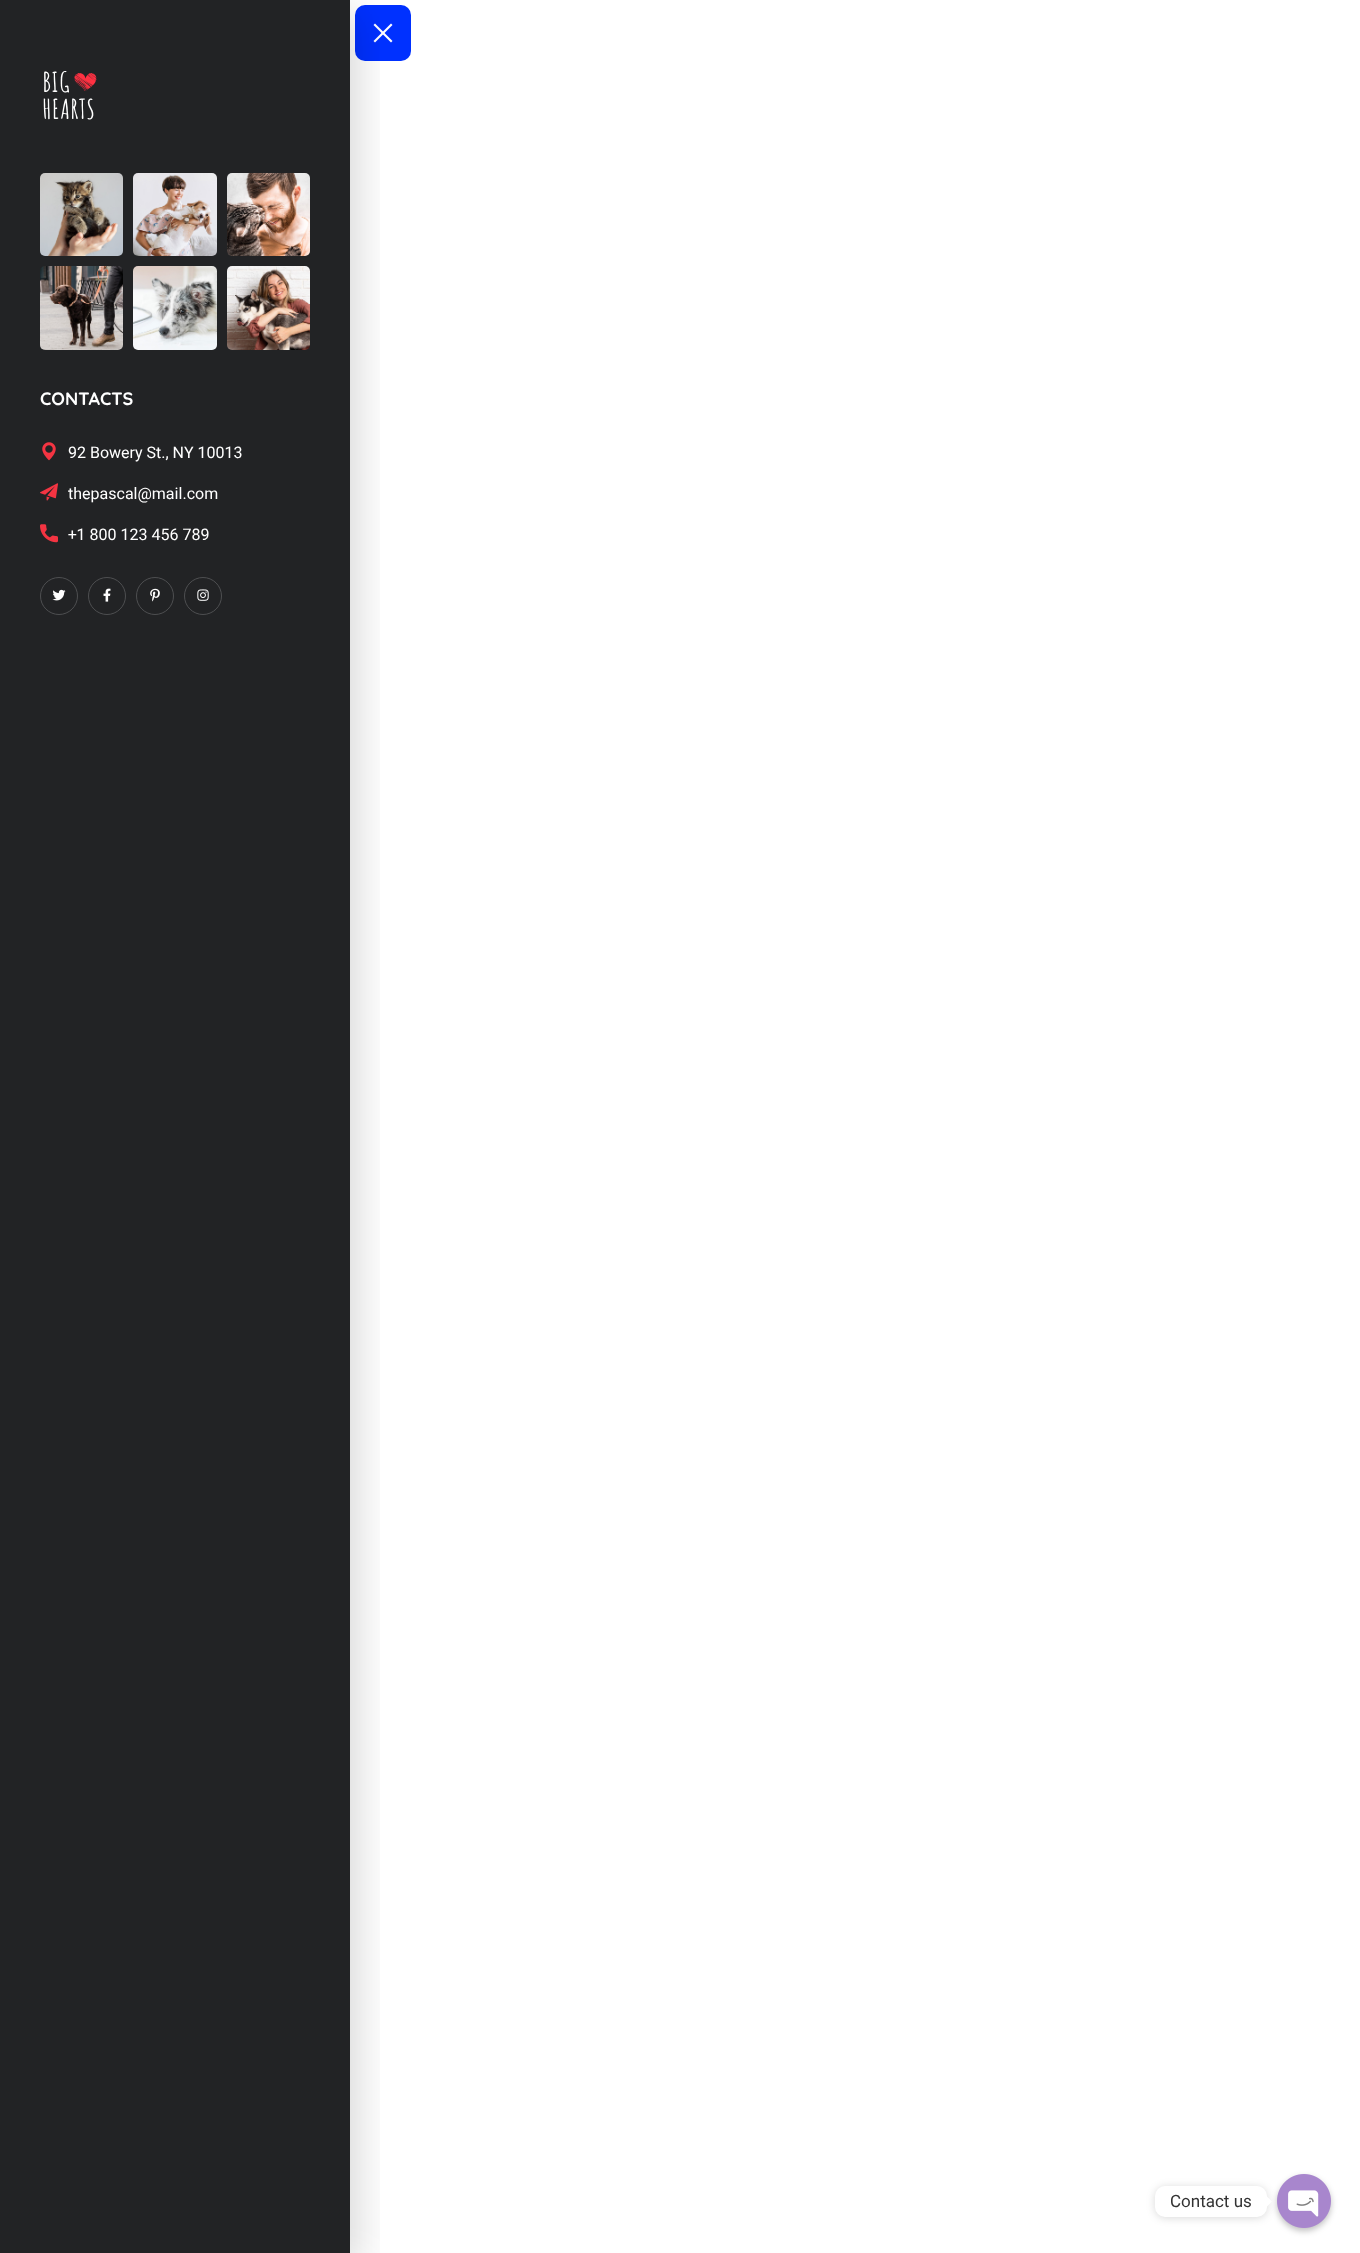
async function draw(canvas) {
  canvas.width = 1360
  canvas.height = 2253
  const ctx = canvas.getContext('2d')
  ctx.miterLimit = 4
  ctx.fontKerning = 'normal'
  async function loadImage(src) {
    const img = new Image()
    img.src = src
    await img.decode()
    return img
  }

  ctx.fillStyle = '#fff'
  ctx.fillRect(0, 0, 1360, 2253)
  ctx.fillStyle = '#222325'
  ctx.fillRect(0, 0, 350, 2253)
  ctx.fillStyle = '#0031ff'
  ctx.beginPath()
  ctx.roundRect(355, 5, 56, 56, 10)
  ctx.fill()
  ctx.fillStyle = '#fff'
  ctx.beginPath()
  ctx.moveTo(375, 23.5)
  ctx.lineTo(392.5, 41)
  ctx.lineTo(391, 42.5)
  ctx.lineTo(373.5, 25)
  ctx.closePath()
  ctx.fill()
  ctx.beginPath()
  ctx.moveTo(392.5, 25)
  ctx.lineTo(375, 42.5)
  ctx.lineTo(373.5, 41)
  ctx.lineTo(391, 23.5)
  ctx.closePath()
  ctx.fill()
  ctx.save()
  ctx.beginPath()
  ctx.rect(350, 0, 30, 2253)
  ctx.clip()
  ctx.fillStyle = '#00000026'
  ctx.filter = 'blur(19px)'
  ctx.beginPath()
  ctx.rect(9, 12, 350, 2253)
  ctx.fill()
  ctx.filter = 'none'
  ctx.restore()
  ctx.drawImage(await loadImage('image0.png'), 43, 71, 54, 49)
  ctx.drawImage(await loadImage('image1.png'), 40, 173, 83, 83)
  ctx.drawImage(await loadImage('image2.png'), 133, 173, 84, 83)
  ctx.drawImage(await loadImage('image3.png'), 227, 173, 83, 83)
  ctx.drawImage(await loadImage('image4.png'), 40, 266, 83, 84)
  ctx.drawImage(await loadImage('image5.png'), 133, 266, 84, 84)
  ctx.drawImage(await loadImage('image6.png'), 227, 266, 83, 84)
  ctx.font = 'bold 18px Quicksand'
  ctx.fillText('CONTACTS', 40, 405)
  ctx.drawImage(await loadImage('image7.png'), 42, 442, 14, 19)
  ctx.font = '16px Heebo'
  ctx.fillText('92 Bowery St., NY 10013', 68, 458)
  ctx.drawImage(await loadImage('image8.png'), 40, 483, 18, 18)
  ctx.fillText('thepascal@mail.com', 68, 499)
  ctx.drawImage(await loadImage('image9.png'), 40, 524, 18, 19)
  ctx.fillText('+1 800 123 456 789', 68, 540)
  ctx.beginPath()
  ctx.arc(59, 596, 18.5, 0, 2 * Math.PI)
  ctx.strokeStyle = '#4e4f51'
  ctx.stroke()
  ctx.drawImage(await loadImage('image10.png'), 52, 589, 14, 12)
  ctx.beginPath()
  ctx.arc(107, 596, 18.5, 0, 2 * Math.PI)
  ctx.stroke()
  ctx.drawImage(await loadImage('image11.png'), 103, 588, 8, 14)
  ctx.beginPath()
  ctx.arc(155, 596, 18.5, 0, 2 * Math.PI)
  ctx.stroke()
  ctx.drawImage(await loadImage('image12.png'), 150, 588, 10, 14)
  ctx.beginPath()
  ctx.arc(203, 596, 18.5, 0, 2 * Math.PI)
  ctx.stroke()
  ctx.drawImage(await loadImage('image13.png'), 197, 589, 12, 12)
  ctx.fillStyle = '#00000026'
  ctx.filter = 'blur(4px)'
  ctx.beginPath()
  ctx.roundRect(1155, 2187, 112, 31, 10)
  ctx.fill()
  ctx.filter = 'none'
  ctx.fillStyle = '#fff'
  ctx.beginPath()
  ctx.roundRect(1155, 2186, 112, 31, 10)
  ctx.fill()
  ctx.font = '17px Roboto'
  ctx.fillStyle = '#333'
  ctx.fillText('Contact us', 1170, 2207)
  ctx.fillStyle = '#fff'
  ctx.beginPath()
  ctx.moveTo(1267, 2206.5)
  ctx.lineTo(1267, 2196.5)
  ctx.lineTo(1272, 2201.5)
  ctx.closePath()
  ctx.fill()
  ctx.fillStyle = '#00000040'
  ctx.filter = 'blur(3px)'
  ctx.beginPath()
  ctx.roundRect(1277, 2177, 54, 54, 27)
  ctx.fill()
  ctx.filter = 'none'
  ctx.drawImage(await loadImage('image14.png'), 1277, 2174, 54, 54)
}

draw(document.querySelector('canvas'))
